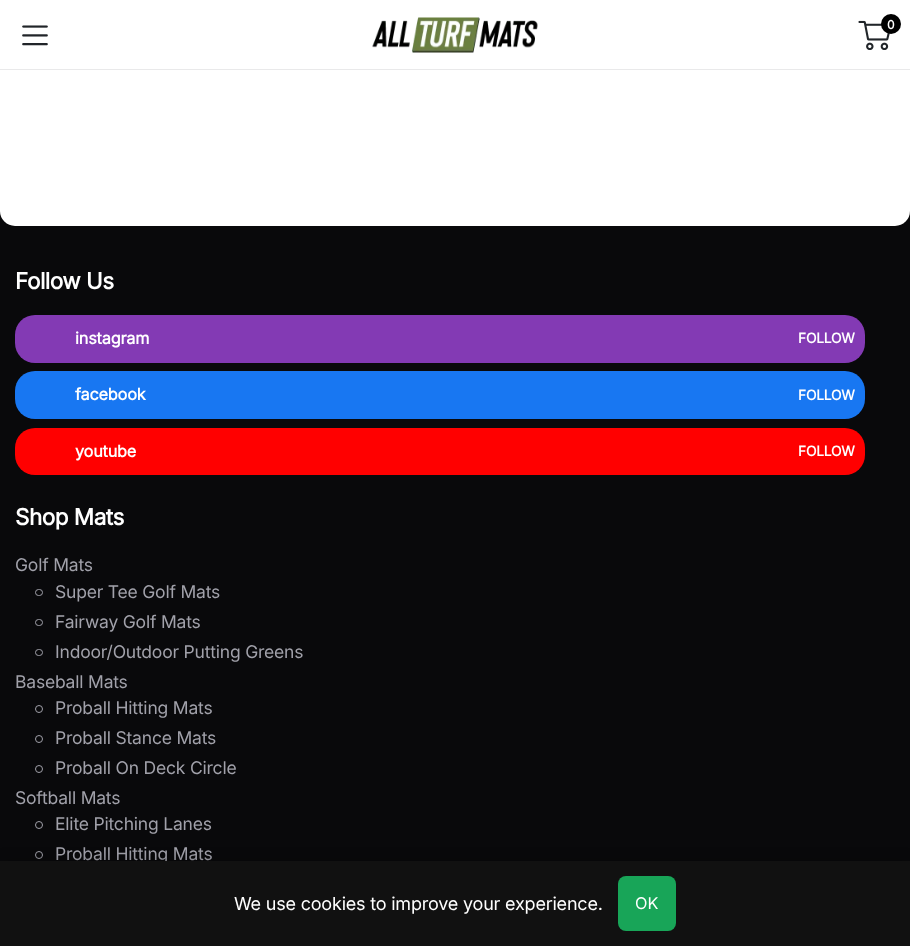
async function draw(canvas) {
  canvas.width = 910
  canvas.height = 946
  const ctx = canvas.getContext('2d')
  ctx.miterLimit = 4
  ctx.fontKerning = 'normal'
  async function loadImage(src) {
    const img = new Image()
    img.src = src
    await img.decode()
    return img
  }

  ctx.fillStyle = '#09090b'
  ctx.fillRect(0, 0, 910, 946)
  ctx.fillStyle = '#fff'
  ctx.beginPath()
  ctx.roundRect(0, -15, 910, 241, 15)
  ctx.fill()
  ctx.drawImage(await loadImage('image0.png'), 22, 25, 26, 21)
  ctx.drawImage(await loadImage('image1.png'), 372, 17, 166, 36)
  ctx.drawImage(await loadImage('image2.png'), 858, 20, 32, 30)
  ctx.fillStyle = '#000'
  ctx.beginPath()
  ctx.arc(891, 24, 10, 0, 2 * Math.PI)
  ctx.fill()
  ctx.letterSpacing = '-0.2px'
  ctx.font = 'bold 12px Inter'
  ctx.fillStyle = '#fff'
  ctx.fillText('0', 887, 29)
  ctx.fillStyle = '#e9e9ea'
  ctx.fillRect(0, 69, 910, 1)
  ctx.letterSpacing = '-0.5px'
  ctx.font = 'bold 22.5px Inter'
  ctx.fillStyle = '#fff'
  ctx.fillText('Follow Us', 15, 289)
  ctx.fillStyle = '#833ab4'
  ctx.beginPath()
  ctx.roundRect(15, 315, 850, 48, 20)
  ctx.fill()
  ctx.letterSpacing = '-0.2px'
  ctx.font = 'bold 16.25px Inter'
  ctx.fillStyle = '#fff'
  ctx.fillText('instagram', 75, 344)
  ctx.font = 'bold 13.75px Inter'
  ctx.fillText('FOLLOW', 798, 343)
  ctx.fillStyle = '#1877f2'
  ctx.beginPath()
  ctx.roundRect(15, 371, 850, 48, 20)
  ctx.fill()
  ctx.font = 'bold 16.25px Inter'
  ctx.fillStyle = '#fff'
  ctx.fillText('facebook', 75, 400)
  ctx.font = 'bold 13.75px Inter'
  ctx.fillText('FOLLOW', 798, 400)
  ctx.fillStyle = '#f00'
  ctx.beginPath()
  ctx.roundRect(15, 428, 850, 47, 20)
  ctx.fill()
  ctx.font = 'bold 16.25px Inter'
  ctx.fillStyle = '#fff'
  ctx.fillText('youtube', 75, 457)
  ctx.font = 'bold 13.75px Inter'
  ctx.fillText('FOLLOW', 798, 456)
  ctx.letterSpacing = '-0.5px'
  ctx.font = 'bold 22.5px Inter'
  ctx.fillText('Shop Mats', 15, 525)
  ctx.letterSpacing = '-0.2px'
  ctx.font = '17.5px Inter'
  ctx.fillStyle = '#a1a1aa'
  ctx.fillText('Golf Mats', 15, 571)
  ctx.beginPath()
  ctx.roundRect(35.5, 589.5, 7, 6, 3)
  ctx.strokeStyle = '#a1a1aa'
  ctx.stroke()
  ctx.fillText('Super Tee Golf Mats', 55, 598)
  ctx.beginPath()
  ctx.roundRect(35.5, 619.5, 7, 6, 3)
  ctx.stroke()
  ctx.fillText('Fairway Golf Mats', 55, 628)
  ctx.beginPath()
  ctx.roundRect(35.5, 649.5, 7, 6, 3)
  ctx.stroke()
  ctx.fillText('Indoor/Outdoor Putting Greens', 55, 658)
  ctx.fillText('Baseball Mats', 15, 688)
  ctx.beginPath()
  ctx.arc(39, 709, 3.5, 0, 2 * Math.PI)
  ctx.stroke()
  ctx.fillText('Proball Hitting Mats', 55, 714)
  ctx.beginPath()
  ctx.arc(39, 739, 3.5, 0, 2 * Math.PI)
  ctx.stroke()
  ctx.fillText('Proball Stance Mats', 55, 744)
  ctx.beginPath()
  ctx.arc(39, 769, 3.5, 0, 2 * Math.PI)
  ctx.stroke()
  ctx.fillText('Proball On Deck Circle', 55, 774)
  ctx.fillText('Softball Mats', 15, 804)
  ctx.beginPath()
  ctx.arc(39, 825, 3.5, 0, 2 * Math.PI)
  ctx.stroke()
  ctx.fillText('Elite Pitching Lanes', 55, 830)
  ctx.beginPath()
  ctx.arc(39, 855, 3.5, 0, 2 * Math.PI)
  ctx.stroke()
  ctx.fillText('Proball Hitting Mats', 55, 860)
  ctx.fillStyle = '#00000033'
  ctx.filter = 'blur(6px)'
  ctx.beginPath()
  ctx.rect(0, 859, 910, 85)
  ctx.fill()
  ctx.filter = 'none'
  ctx.fillStyle = '#111'
  ctx.fillRect(0, 861, 910, 85)
  ctx.font = '18px Inter'
  ctx.fillStyle = '#fff'
  ctx.fillText('We use cookies to improve your experience.', 234, 910)
  ctx.fillStyle = '#18a558'
  ctx.beginPath()
  ctx.roundRect(618, 876, 58, 55, 8)
  ctx.fill()
  ctx.letterSpacing = '0px'
  ctx.font = '16.25px Inter'
  ctx.fillStyle = '#fff'
  ctx.fillText('OK', 635, 909)
}

draw(document.querySelector('canvas'))
